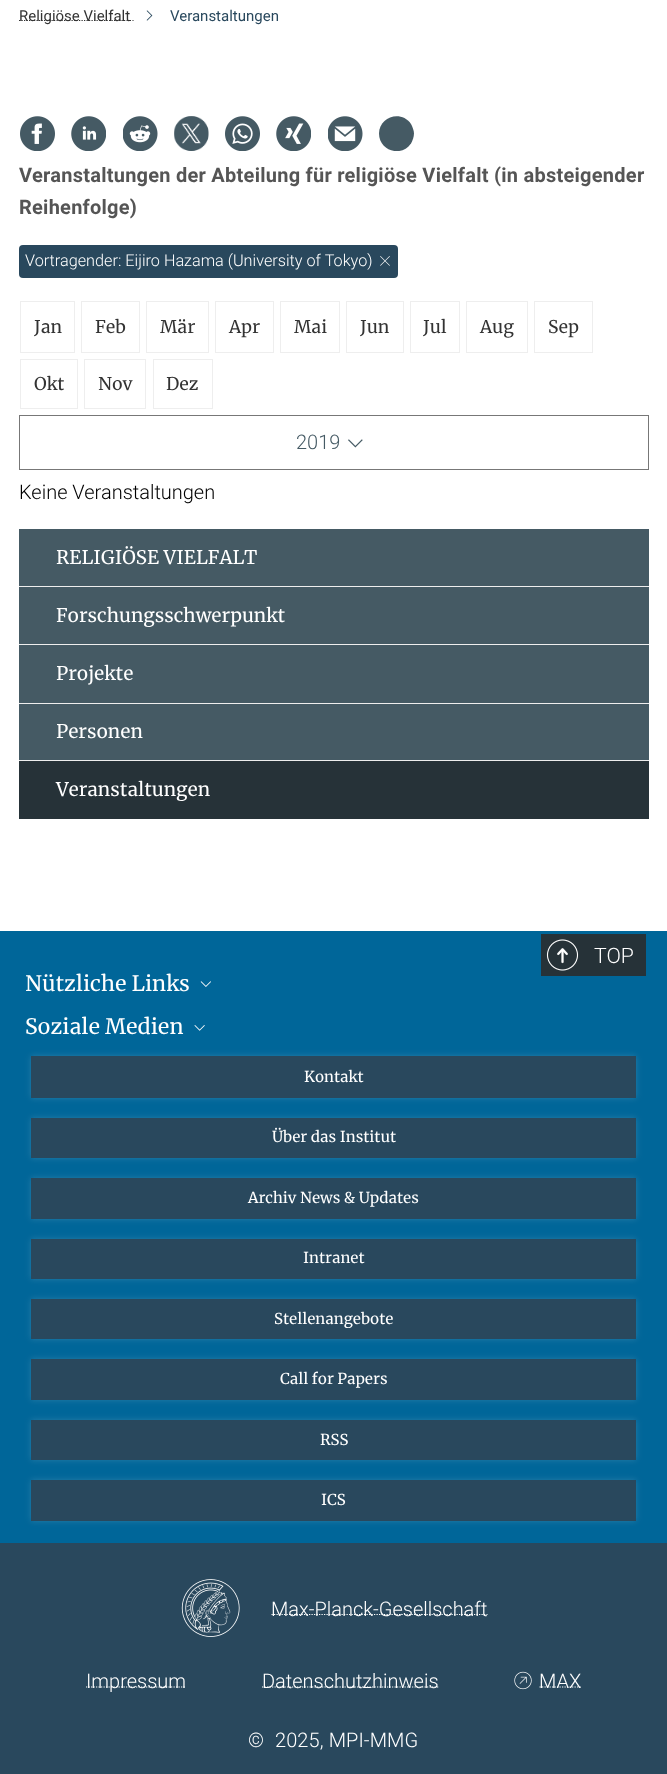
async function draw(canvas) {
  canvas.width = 667
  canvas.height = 1774
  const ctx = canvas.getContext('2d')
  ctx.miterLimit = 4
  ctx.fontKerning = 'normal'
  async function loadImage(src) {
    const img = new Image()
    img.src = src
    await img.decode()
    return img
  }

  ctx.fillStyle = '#fff'
  ctx.fillRect(0, 0, 667, 1774)
  ctx.beginPath()
  ctx.moveTo(19, 20.5)
  ctx.lineTo(130, 20.5)
  ctx.strokeStyle = '#333'
  ctx.lineWidth = 1.2
  ctx.setLineDash([1.25, 1.25])
  ctx.stroke()
  ctx.font = '15px Roboto'
  ctx.fillStyle = '#333'
  ctx.fillText('Religiöse Vielfalt', 19, 21)
  ctx.beginPath()
  ctx.moveTo(130, 20.5)
  ctx.lineTo(131, 20.5)
  ctx.moveTo(132.5, 20.5)
  ctx.lineTo(133.5, 20.5)
  ctx.setLineDash([])
  ctx.stroke()
  ctx.drawImage(await loadImage('image0.png'), 146, 10, 7, 11)
  ctx.fillStyle = '#29485d'
  ctx.fillText('Veranstaltungen', 170, 21)
  ctx.drawImage(await loadImage('image1.png'), 20, 116, 35, 35)
  ctx.drawImage(await loadImage('image2.png'), 71, 116, 35, 35)
  ctx.drawImage(await loadImage('image3.png'), 123, 116, 35, 35)
  ctx.drawImage(await loadImage('image4.png'), 174, 116, 35, 35)
  ctx.drawImage(await loadImage('image5.png'), 225, 116, 35, 35)
  ctx.drawImage(await loadImage('image6.png'), 276, 116, 35, 35)
  ctx.drawImage(await loadImage('image7.png'), 328, 116, 35, 35)
  ctx.save()
  ctx.beginPath()
  ctx.rect(379, 116, 35, 35)
  ctx.clip()
  ctx.fillStyle = '#455a64'
  ctx.beginPath()
  ctx.moveTo(414, 133.5)
  ctx.bezierCurveTo(414, 137, 412.5, 140.5, 411, 143.5)
  ctx.bezierCurveTo(401, 158, 379, 150.5, 379, 133.5)
  ctx.bezierCurveTo(379, 117, 401, 109.5, 411, 124)
  ctx.bezierCurveTo(412.5, 127, 414, 130.5, 414, 133.5)
  ctx.closePath()
  ctx.fill()
  ctx.restore()
  ctx.letterSpacing = '0.25px'
  ctx.font = 'bold 20px Roboto'
  ctx.fillStyle = '#555'
  ctx.fillText('Veranstaltungen der Abteilung für religiöse Vielfalt (in absteigender', 19, 182)
  ctx.fillText('Reihenfolge)', 19, 214)
  ctx.fillStyle = '#29485d'
  ctx.beginPath()
  ctx.roundRect(19, 245, 379, 33, 4)
  ctx.fill()
  ctx.letterSpacing = '0px'
  ctx.font = '300 16.25px Roboto'
  ctx.fillStyle = '#fff'
  ctx.fillText('Vortragender: Eijiro Hazama (University of Tokyo)', 25, 266)
  ctx.drawImage(await loadImage('image8.png'), 380, 256, 10, 10)
  ctx.strokeStyle = '#eee'
  ctx.lineWidth = 1
  ctx.strokeRect(20.5, 301.5, 54, 51)
  ctx.font = '17.5px Merriweather'
  ctx.fillStyle = '#333'
  ctx.fillText('Jan', 34, 333)
  ctx.strokeRect(81.5, 301.5, 58, 51)
  ctx.fillText('Feb', 95, 333)
  ctx.strokeRect(146.5, 301.5, 62, 51)
  ctx.fillText('Mär', 160, 333)
  ctx.strokeRect(215.5, 301.5, 58, 51)
  ctx.fillText('Apr', 229, 333)
  ctx.strokeRect(280.5, 301.5, 59, 51)
  ctx.fillText('Mai', 294, 333)
  ctx.strokeRect(346.5, 301.5, 57, 51)
  ctx.fillText('Jun', 360, 333)
  ctx.strokeRect(410.5, 301.5, 49, 51)
  ctx.fillText('Jul', 423, 333)
  ctx.strokeRect(466.5, 301.5, 61, 51)
  ctx.fillText('Aug', 480, 333)
  ctx.strokeRect(534.5, 301.5, 58, 51)
  ctx.fillText('Sep', 548, 333)
  ctx.strokeRect(20.5, 359.5, 57, 49)
  ctx.fillText('Okt', 34, 390)
  ctx.strokeRect(84.5, 359.5, 61, 49)
  ctx.fillText('Nov', 98, 390)
  ctx.strokeRect(153.5, 359.5, 59, 49)
  ctx.fillText('Dez', 166, 390)
  ctx.strokeStyle = '#777'
  ctx.strokeRect(19.5, 415.5, 629, 54)
  ctx.font = '300 20px Roboto'
  ctx.fillStyle = '#455a64'
  ctx.fillText('2019', 296, 449)
  ctx.drawImage(await loadImage('image9.png'), 348, 439, 15, 9)
  ctx.fillStyle = '#000'
  ctx.fillText('Keine Veranstaltungen', 19, 499)
  ctx.fillStyle = '#455a64'
  ctx.fillRect(19, 529, 630, 115)
  ctx.fillStyle = '#eee'
  ctx.fillRect(19, 586, 630, 1)
  ctx.font = '18.75px Merriweather'
  ctx.fillStyle = '#fff'
  ctx.fillText('RELIGIÖSE VIELFALT', 56, 564)
  ctx.fillStyle = '#eee'
  ctx.fillRect(19, 644, 630, 1)
  ctx.fillStyle = '#fff'
  ctx.fillText('Forschungsschwerpunkt', 56, 622)
  ctx.fillStyle = '#455a64'
  ctx.fillRect(19, 645, 630, 58)
  ctx.fillStyle = '#eee'
  ctx.fillRect(19, 703, 630, 1)
  ctx.fillStyle = '#fff'
  ctx.fillText('Projekte', 56, 680)
  ctx.fillStyle = '#455a64'
  ctx.fillRect(19, 704, 630, 56)
  ctx.fillStyle = '#eee'
  ctx.fillRect(19, 760, 630, 1)
  ctx.fillStyle = '#fff'
  ctx.fillText('Personen', 56, 738)
  ctx.fillStyle = '#263238'
  ctx.fillRect(19, 761, 630, 58)
  ctx.fillStyle = '#fff'
  ctx.fillText('Veranstaltungen', 56, 796)
  ctx.fillStyle = '#069'
  ctx.fillRect(0, 931, 667, 612)
  ctx.fillStyle = '#263238'
  ctx.fillRect(541, 934, 105, 42)
  ctx.drawImage(await loadImage('image10.png'), 557, 948, 11, 16)
  ctx.drawImage(await loadImage('image11.png'), 546, 939, 33, 32)
  ctx.font = '300 21.25px Roboto'
  ctx.fillStyle = '#fff'
  ctx.fillText('TOP', 594, 963)
  ctx.font = '21.25px Merriweather'
  ctx.fillText('Nützliche Links', 25, 991)
  ctx.drawImage(await loadImage('image12.png'), 200, 981, 11, 6)
  ctx.fillText('Soziale Medien', 25, 1034)
  ctx.drawImage(await loadImage('image13.png'), 194, 1025, 11, 6)
  ctx.fillStyle = '#ffffff26'
  ctx.filter = 'blur(3px)'
  ctx.beginPath()
  ctx.rect(31, 1056, 605, 42)
  ctx.fill()
  ctx.filter = 'none'
  ctx.fillStyle = '#29485d'
  ctx.fillRect(31, 1056, 605, 42)
  ctx.font = '15px Merriweather'
  ctx.fillStyle = '#fff'
  ctx.fillText('Kontakt', 304, 1082)
  ctx.fillStyle = '#ffffff26'
  ctx.filter = 'blur(3px)'
  ctx.beginPath()
  ctx.rect(31, 1118, 605, 40)
  ctx.fill()
  ctx.filter = 'none'
  ctx.fillStyle = '#29485d'
  ctx.fillRect(31, 1118, 605, 40)
  ctx.fillStyle = '#fff'
  ctx.fillText('Über das Institut', 272, 1142)
  ctx.fillStyle = '#ffffff26'
  ctx.filter = 'blur(3px)'
  ctx.beginPath()
  ctx.rect(31, 1178, 605, 41)
  ctx.fill()
  ctx.filter = 'none'
  ctx.fillStyle = '#29485d'
  ctx.fillRect(31, 1178, 605, 41)
  ctx.fillStyle = '#fff'
  ctx.fillText('Archiv News & Updates', 248, 1203)
  ctx.fillStyle = '#ffffff26'
  ctx.filter = 'blur(3px)'
  ctx.beginPath()
  ctx.rect(31, 1239, 605, 40)
  ctx.fill()
  ctx.filter = 'none'
  ctx.fillStyle = '#29485d'
  ctx.fillRect(31, 1239, 605, 40)
  ctx.fillStyle = '#fff'
  ctx.fillText('Intranet', 303, 1263)
  ctx.fillStyle = '#ffffff26'
  ctx.filter = 'blur(3px)'
  ctx.beginPath()
  ctx.rect(31, 1299, 605, 40)
  ctx.fill()
  ctx.filter = 'none'
  ctx.fillStyle = '#29485d'
  ctx.fillRect(31, 1299, 605, 40)
  ctx.fillStyle = '#fff'
  ctx.fillText('Stellenangebote', 274, 1324)
  ctx.fillStyle = '#ffffff26'
  ctx.filter = 'blur(3px)'
  ctx.beginPath()
  ctx.rect(31, 1359, 605, 41)
  ctx.fill()
  ctx.filter = 'none'
  ctx.fillStyle = '#29485d'
  ctx.fillRect(31, 1359, 605, 41)
  ctx.fillStyle = '#fff'
  ctx.fillText('Call for Papers', 280, 1384)
  ctx.fillStyle = '#ffffff26'
  ctx.filter = 'blur(3px)'
  ctx.beginPath()
  ctx.rect(31, 1420, 605, 40)
  ctx.fill()
  ctx.filter = 'none'
  ctx.fillStyle = '#29485d'
  ctx.fillRect(31, 1420, 605, 40)
  ctx.fillStyle = '#fff'
  ctx.fillText('RSS', 320, 1445)
  ctx.fillStyle = '#ffffff26'
  ctx.filter = 'blur(3px)'
  ctx.beginPath()
  ctx.rect(31, 1480, 605, 41)
  ctx.fill()
  ctx.filter = 'none'
  ctx.fillStyle = '#29485d'
  ctx.fillRect(31, 1480, 605, 41)
  ctx.fillStyle = '#fff'
  ctx.fillText('ICS', 321, 1505)
  ctx.fillStyle = '#29485d'
  ctx.fillRect(0, 1543, 667, 231)
  ctx.drawImage(await loadImage('image14.png'), 181, 1579, 59, 58)
  ctx.beginPath()
  ctx.moveTo(271.5, 1614.5)
  ctx.lineTo(487.5, 1614.5)
  ctx.strokeStyle = '#fff'
  ctx.lineWidth = 1.2
  ctx.setLineDash([1.25, 1.25])
  ctx.stroke()
  ctx.font = '300 20px Roboto'
  ctx.fillStyle = '#fff'
  ctx.fillText('Max-Planck-Gesellschaft', 271, 1616)
  ctx.beginPath()
  ctx.moveTo(86, 1687)
  ctx.lineTo(186, 1687)
  ctx.stroke()
  ctx.fillText('Impressum', 86, 1688)
  ctx.beginPath()
  ctx.moveTo(262, 1687)
  ctx.lineTo(438.5, 1687)
  ctx.stroke()
  ctx.fillText('Datenschutzhinweis', 262, 1688)
  ctx.drawImage(await loadImage('image15.png'), 514, 1671, 18, 19)
  ctx.beginPath()
  ctx.moveTo(539.5, 1687)
  ctx.lineTo(581.5, 1687)
  ctx.stroke()
  ctx.fillText('MAX', 539, 1688)
  ctx.fillText('©', 248, 1747)
  ctx.letterSpacing = '0.1px'
  ctx.fillText('2025, MPI-MMG', 275, 1747)
}

draw(document.querySelector('canvas'))
